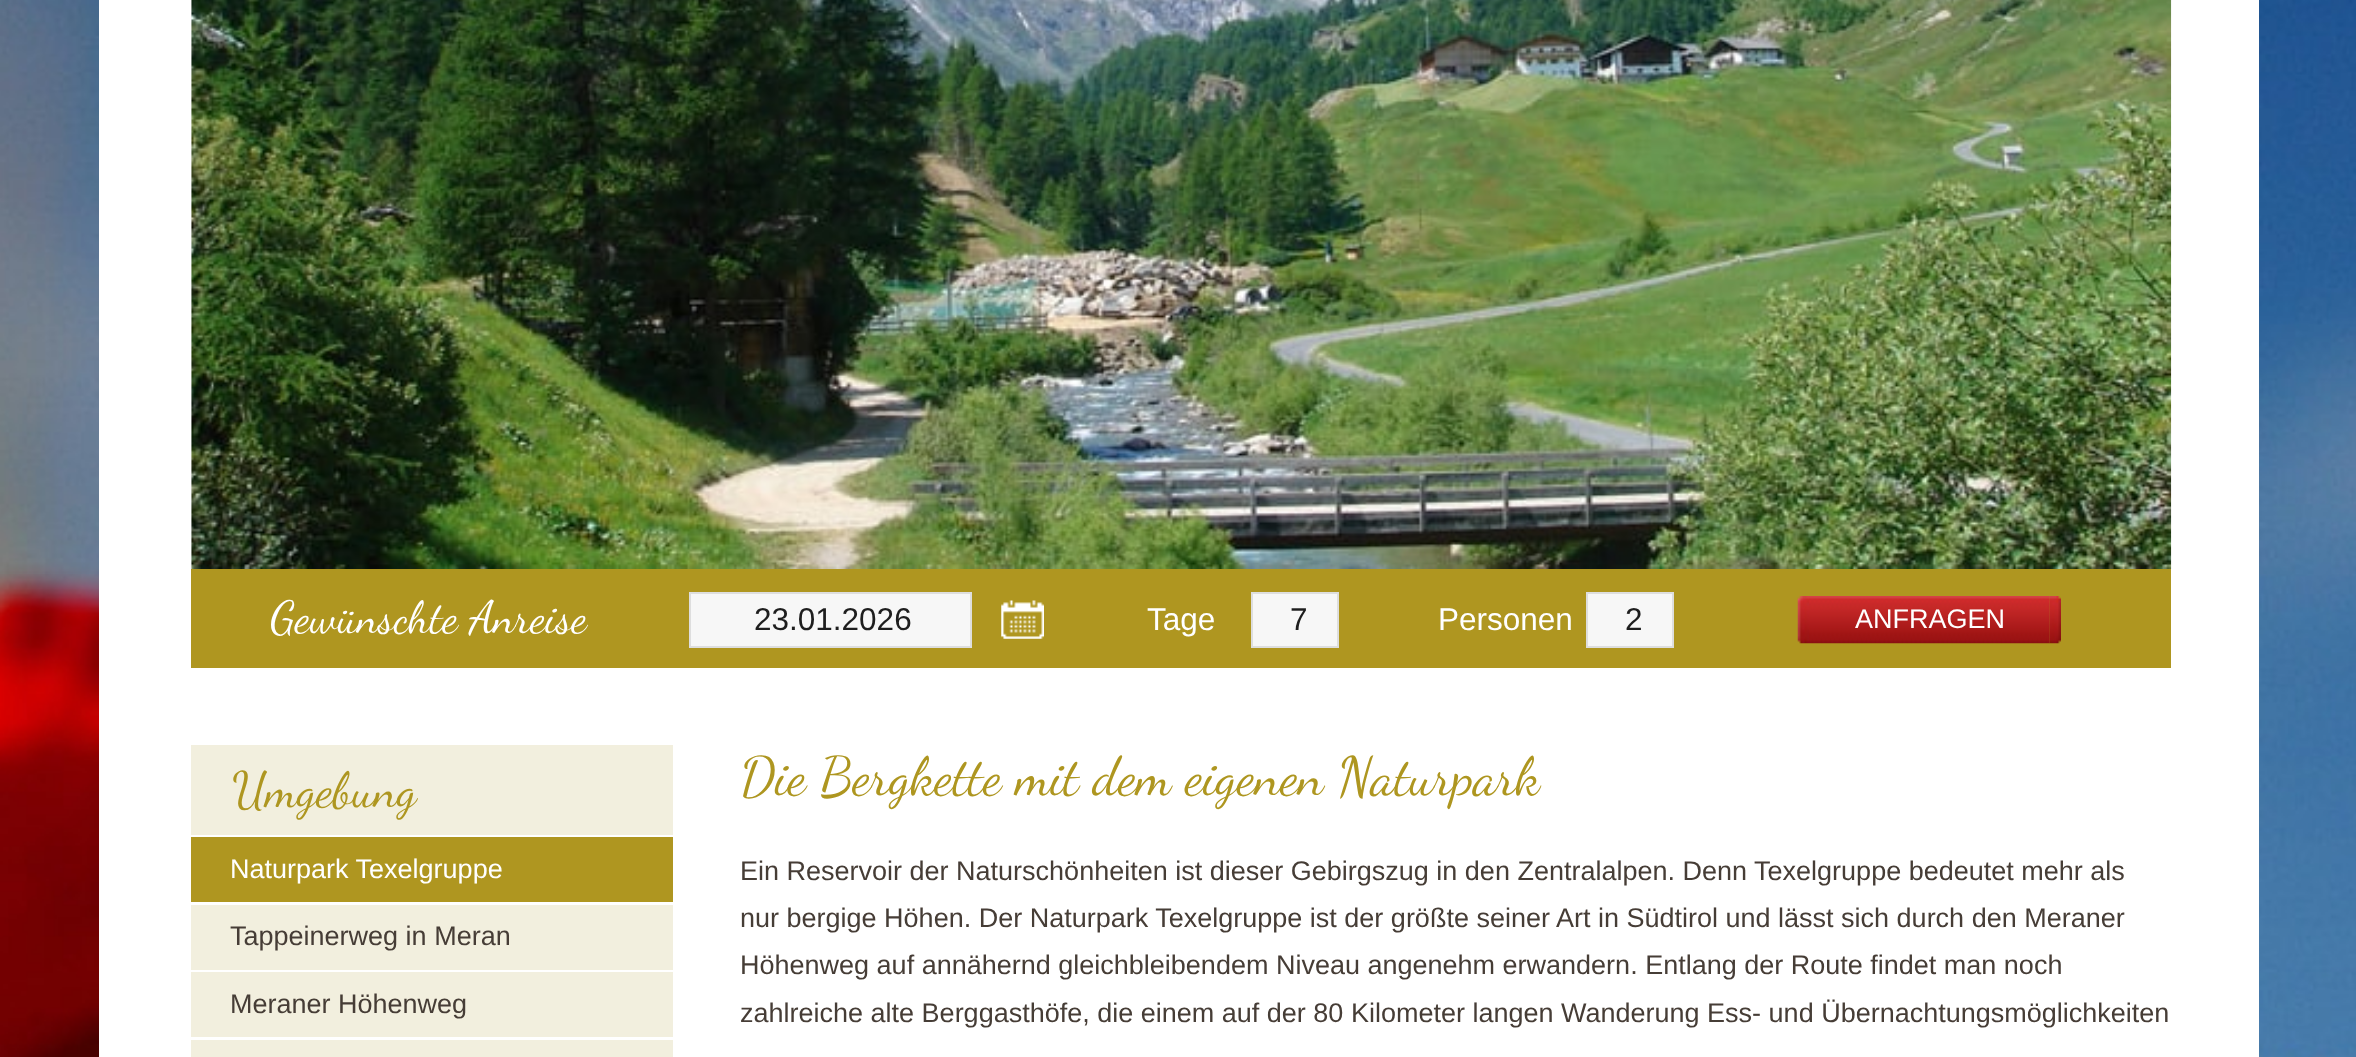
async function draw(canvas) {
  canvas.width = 2356
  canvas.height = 1057
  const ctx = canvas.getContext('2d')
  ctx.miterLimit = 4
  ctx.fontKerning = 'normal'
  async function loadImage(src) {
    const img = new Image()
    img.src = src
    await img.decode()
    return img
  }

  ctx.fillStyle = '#fff'
  ctx.fillRect(0, 0, 2356, 1057)
  ctx.drawImage(await loadImage('image0.png'), 0, 0, 2356, 1057)
  ctx.fillRect(99, 0, 2160, 1057)
  ctx.drawImage(await loadImage('image1.png'), 191, 0, 1981, 569)
  ctx.fillStyle = '#af9620'
  ctx.fillRect(191, 569, 1980, 99)
  ctx.font = '45px Dancing Script'
  ctx.fillStyle = '#fff'
  ctx.fillText('Gewünschte Anreise', 270, 632)
  ctx.fillStyle = '#f7f7f7'
  ctx.beginPath()
  ctx.rect(690, 593, 281, 54)
  ctx.fill()
  ctx.strokeStyle = '#dedede'
  ctx.lineWidth = 2
  ctx.stroke()
  ctx.font = '31.5px Liberation Sans'
  ctx.fillStyle = '#1e1e1e'
  ctx.fillText('23.01.2026', 754, 630)
  ctx.drawImage(await loadImage('image2.png'), 1001, 600, 43, 39)
  ctx.fillStyle = '#fff'
  ctx.fillText('Tage', 1147, 630)
  ctx.fillStyle = '#f7f7f7'
  ctx.beginPath()
  ctx.rect(1252, 593, 86, 54)
  ctx.fill()
  ctx.stroke()
  ctx.fillStyle = '#1e1e1e'
  ctx.fillText('7', 1290, 630)
  ctx.fillStyle = '#fff'
  ctx.fillText('Personen', 1438, 630)
  ctx.fillStyle = '#f7f7f7'
  ctx.beginPath()
  ctx.rect(1587, 593, 86, 54)
  ctx.fill()
  ctx.stroke()
  ctx.fillStyle = '#1e1e1e'
  ctx.fillText('2', 1625, 630)
  ctx.drawImage(await loadImage('image3.png'), 1797, 596, 12, 48)
  ctx.drawImage(await loadImage('image4.png'), 1809, 596, 241, 48)
  ctx.font = '27px Liberation Sans'
  ctx.fillStyle = '#fff'
  ctx.fillText('ANFRAGEN', 1855, 628)
  ctx.drawImage(await loadImage('image5.png'), 2049, 596, 12, 48)
  ctx.fillStyle = '#f2efde'
  ctx.fillRect(191, 745, 482, 90)
  ctx.font = '49.5px Dancing Script'
  ctx.fillStyle = '#ae9620'
  ctx.fillText('Umgebung', 232, 806)
  ctx.fillStyle = '#af9620'
  ctx.fillRect(191, 837, 482, 65)
  ctx.font = '27px Liberation Sans'
  ctx.fillStyle = '#fff'
  ctx.fillText('Naturpark Texelgruppe', 230, 878)
  ctx.fillStyle = '#f2efde'
  ctx.fillRect(191, 905, 482, 65)
  ctx.fillStyle = '#463d36'
  ctx.fillText('Tappeinerweg in Meran', 230, 945)
  ctx.fillStyle = '#f2efde'
  ctx.fillRect(191, 972, 482, 65)
  ctx.fillStyle = '#463d36'
  ctx.fillText('Meraner Höhenweg', 230, 1013)
  ctx.fillStyle = '#f2efde'
  ctx.fillRect(191, 1040, 482, 17)
  ctx.font = '54px Dancing Script'
  ctx.fillStyle = '#ae9620'
  ctx.fillText('Die Bergkette mit dem eigenen Naturpark', 740, 794)
  ctx.font = '27px Liberation Sans'
  ctx.fillStyle = '#463d36'
  ctx.fillText('Ein Reservoir der Naturschönheiten ist dieser Gebirgszug in den Zentralalpen. Denn Texelgruppe bedeutet mehr als', 740, 880)
  ctx.fillText('nur bergige Höhen. Der Naturpark Texelgruppe ist der größte seiner Art in Südtirol und lässt sich durch den Meraner', 740, 927)
  ctx.fillText('Höhenweg auf annähernd gleichbleibendem Niveau angenehm erwandern. Entlang der Route findet man noch', 740, 974)
  ctx.fillText('zahlreiche alte Berggasthöfe, die einem auf der 80 Kilometer langen Wanderung Ess- und Übernachtungsmöglichkeiten', 740, 1022)
}

draw(document.querySelector('canvas'))
